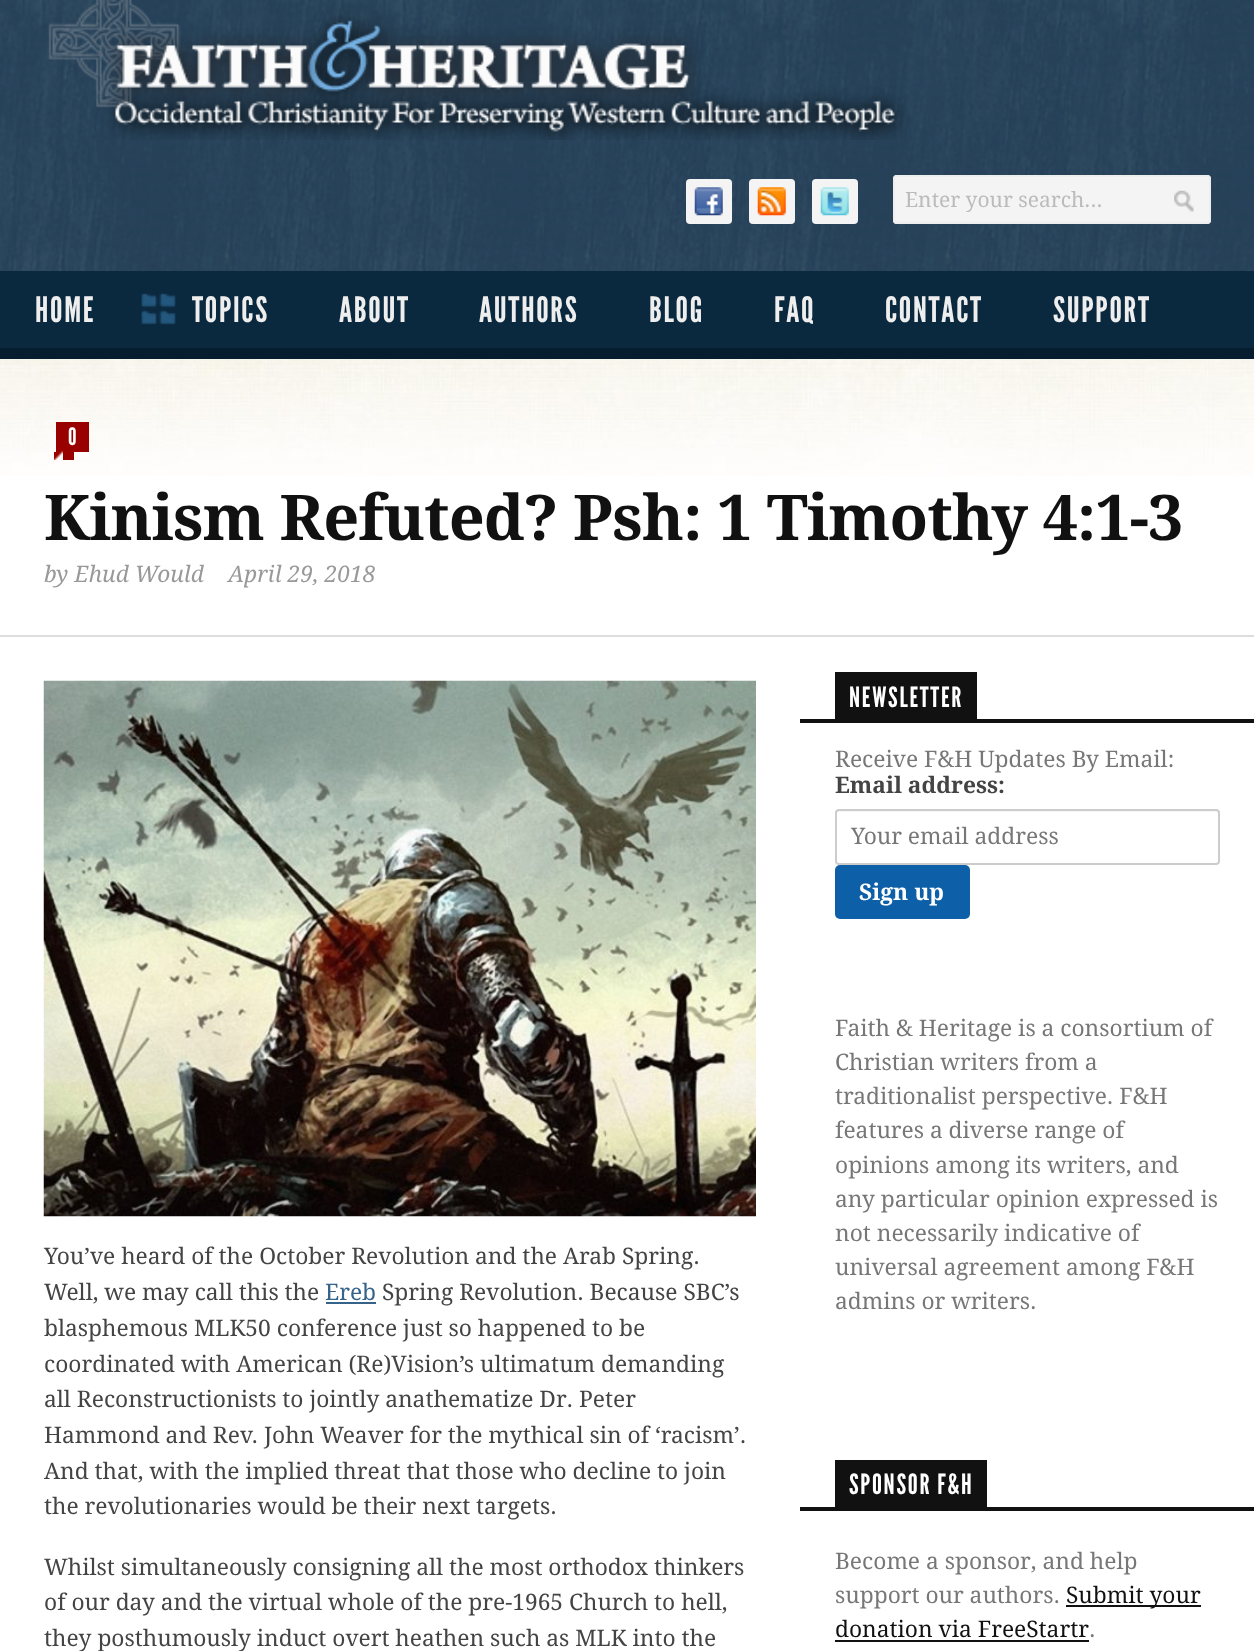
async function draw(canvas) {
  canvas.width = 1254
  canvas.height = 1651
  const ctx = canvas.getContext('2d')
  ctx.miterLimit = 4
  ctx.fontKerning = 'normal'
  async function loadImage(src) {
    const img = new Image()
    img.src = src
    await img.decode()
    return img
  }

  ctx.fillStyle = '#fff'
  ctx.fillRect(0, 0, 1254, 1651)
  ctx.drawImage(await loadImage('image0.png'), 0, 359, 1254, 117)
  ctx.drawImage(await loadImage('image1.png'), 0, 0, 1254, 271)
  ctx.drawImage(await loadImage('image2.png'), 48, 0, 859, 140)
  ctx.fillStyle = '#f4f4f4'
  ctx.beginPath()
  ctx.roundRect(686, 179, 46, 45, 4)
  ctx.fill()
  ctx.drawImage(await loadImage('image3.png'), 694, 187, 29, 29)
  ctx.beginPath()
  ctx.roundRect(749, 179, 46, 45, 4)
  ctx.fill()
  ctx.drawImage(await loadImage('image4.png'), 757, 187, 29, 29)
  ctx.beginPath()
  ctx.roundRect(812, 179, 46, 45, 4)
  ctx.fill()
  ctx.drawImage(await loadImage('image5.png'), 820, 187, 29, 29)
  ctx.beginPath()
  ctx.roundRect(893, 175, 318, 49, 4)
  ctx.fill()
  ctx.drawImage(await loadImage('image6.png'), 1174, 190, 20, 22)
  ctx.beginPath()
  ctx.roundRect(894, 176, 316, 47, 3)
  ctx.strokeStyle = '#eee'
  ctx.lineWidth = 2
  ctx.stroke()
  ctx.font = '21px Droid Serif'
  ctx.fillStyle = '#bbb'
  ctx.fillText('Enter your search...', 905, 207)
  ctx.fillStyle = '#0a283e'
  ctx.fillRect(0, 271, 1254, 77)
  ctx.letterSpacing = '1.75px'
  ctx.font = '35px League Gothic'
  ctx.fillStyle = '#eee'
  ctx.fillText('HOME', 35, 322)
  ctx.drawImage(await loadImage('image7.png'), 141, 293, 35, 32)
  ctx.fillText('TOPICS', 192, 322)
  ctx.fillText('ABOUT', 339, 322)
  ctx.fillText('AUTHORS', 479, 322)
  ctx.fillText('BLOG', 649, 322)
  ctx.fillText('FAQ', 774, 322)
  ctx.fillText('CONTACT', 885, 322)
  ctx.fillText('SUPPORT', 1053, 322)
  ctx.fillStyle = '#051d2f'
  ctx.fillRect(0, 348, 1254, 11)
  ctx.fillStyle = '#ddd'
  ctx.fillRect(0, 635, 1254, 2)
  ctx.fillStyle = '#900'
  ctx.fillRect(54, 452, 20, 8)
  ctx.fillRect(56, 422, 33, 30)
  ctx.font = '24px League Gothic'
  ctx.fillStyle = '#fff'
  ctx.fillText('0', 68, 445)
  ctx.drawImage(await loadImage('image8.png'), 54, 451, 9, 9)
  ctx.letterSpacing = '-0.9px'
  ctx.font = 'bold 63px Droid Serif'
  ctx.fillStyle = '#111'
  ctx.fillText('Kinism Refuted? Psh: 1 Timothy 4:1-3', 44, 540)
  ctx.letterSpacing = '0px'
  ctx.font = 'italic 22.75px Droid Serif'
  ctx.fillStyle = '#999'
  ctx.fillText('by Ehud Would', 44, 582)
  ctx.fillText('April 29, 2018', 228, 582)
  ctx.drawImage(await loadImage('image9.png'), 43, 680, 713, 537)
  ctx.font = '22.75px Droid Serif'
  ctx.fillStyle = '#444'
  ctx.fillText('You’ve heard of the October Revolution and the Arab Spring.', 44, 1264)
  ctx.fillText('Well, we may call this the', 44, 1300)
  ctx.fillStyle = '#36638a'
  ctx.fillText('Ereb', 325, 1300)
  ctx.fillRect(326, 1302, 50, 2)
  ctx.fillStyle = '#444'
  ctx.fillText('Spring Revolution. Because SBC’s', 382, 1300)
  ctx.fillText('blasphemous MLK50 conference just so happened to be', 44, 1336)
  ctx.fillText('coordinated with American (Re)Vision’s ultimatum demanding', 44, 1372)
  ctx.fillText('all Reconstructionists to jointly anathematize Dr. Peter', 44, 1407)
  ctx.fillText('Hammond and Rev. John Weaver for the mythical sin of ‘racism’.', 44, 1443)
  ctx.fillText('And that, with the implied threat that those who decline to join', 44, 1479)
  ctx.fillText('the revolutionaries would be their next targets.', 44, 1514)
  ctx.fillText('Whilst simultaneously consigning all the most orthodox thinkers', 44, 1575)
  ctx.fillText('of our day and the virtual whole of the pre-1965 Church to hell,', 44, 1610)
  ctx.fillText('they posthumously induct overt heathen such as MLK into the', 44, 1646)
  ctx.fillStyle = '#111'
  ctx.fillRect(800, 719, 454, 4)
  ctx.fillRect(835, 672, 142, 47)
  ctx.letterSpacing = '1.75px'
  ctx.font = '28px League Gothic'
  ctx.fillStyle = '#fff'
  ctx.fillText('NEWSLETTER', 849, 707)
  ctx.letterSpacing = '0px'
  ctx.font = '22.75px Droid Serif'
  ctx.fillStyle = '#777'
  ctx.fillText('Receive F&H Updates By Email:', 835, 767)
  ctx.font = 'bold 22.75px Droid Serif'
  ctx.fillStyle = '#444'
  ctx.fillText('Email address:', 835, 793)
  ctx.fillStyle = '#f5f5f5'
  ctx.beginPath()
  ctx.moveTo(838, 812)
  ctx.lineTo(1216, 812)
  ctx.bezierCurveTo(1217, 812, 1218, 813, 1218, 814)
  ctx.bezierCurveTo(1218, 812, 1218, 810, 1216, 810)
  ctx.lineTo(839, 810)
  ctx.bezierCurveTo(838, 810, 837, 811, 837, 812)
  ctx.closePath()
  ctx.fill()
  ctx.beginPath()
  ctx.roundRect(836, 810, 383, 54, 3)
  ctx.strokeStyle = '#ccc'
  ctx.stroke()
  ctx.font = '22.75px Droid Serif'
  ctx.fillStyle = '#777'
  ctx.fillText('Your email address', 851, 844)
  ctx.fillStyle = '#0d60a8'
  ctx.beginPath()
  ctx.roundRect(835, 865, 135, 54, 5)
  ctx.fill()
  ctx.font = 'bold 22.75px Droid Serif'
  ctx.fillStyle = '#fff'
  ctx.fillText('Sign up', 859, 900)
  ctx.font = '22.75px Droid Serif'
  ctx.fillStyle = '#777'
  ctx.fillText('Faith & Heritage is a consortium of', 835, 1036)
  ctx.fillText('Christian writers from a', 835, 1070)
  ctx.fillText('traditionalist perspective. F&H', 835, 1104)
  ctx.fillText('features a diverse range of', 835, 1138)
  ctx.fillText('opinions among its writers, and', 835, 1173)
  ctx.fillText('any particular opinion expressed is', 835, 1207)
  ctx.fillText('not necessarily indicative of', 835, 1241)
  ctx.fillText('universal agreement among F&H', 835, 1275)
  ctx.fillText('admins or writers.', 835, 1309)
  ctx.fillStyle = '#111'
  ctx.fillRect(800, 1507, 454, 4)
  ctx.fillRect(835, 1460, 152, 47)
  ctx.letterSpacing = '1.75px'
  ctx.font = '28px League Gothic'
  ctx.fillStyle = '#fff'
  ctx.fillText('SPONSOR F&H', 849, 1494)
  ctx.letterSpacing = '0px'
  ctx.font = '22.75px Droid Serif'
  ctx.fillStyle = '#777'
  ctx.fillText('Become a sponsor, and help', 835, 1569)
  ctx.fillText('support our authors.', 835, 1603)
  ctx.fillStyle = '#111'
  ctx.fillRect(1066, 1605, 135, 2)
  ctx.fillText('Submit your', 1066, 1603)
  ctx.fillText('donation via FreeStartr', 835, 1637)
  ctx.fillRect(835, 1640, 254, 2)
  ctx.fillStyle = '#777'
  ctx.fillText('.', 1089, 1637)
}

draw(document.querySelector('canvas'))
